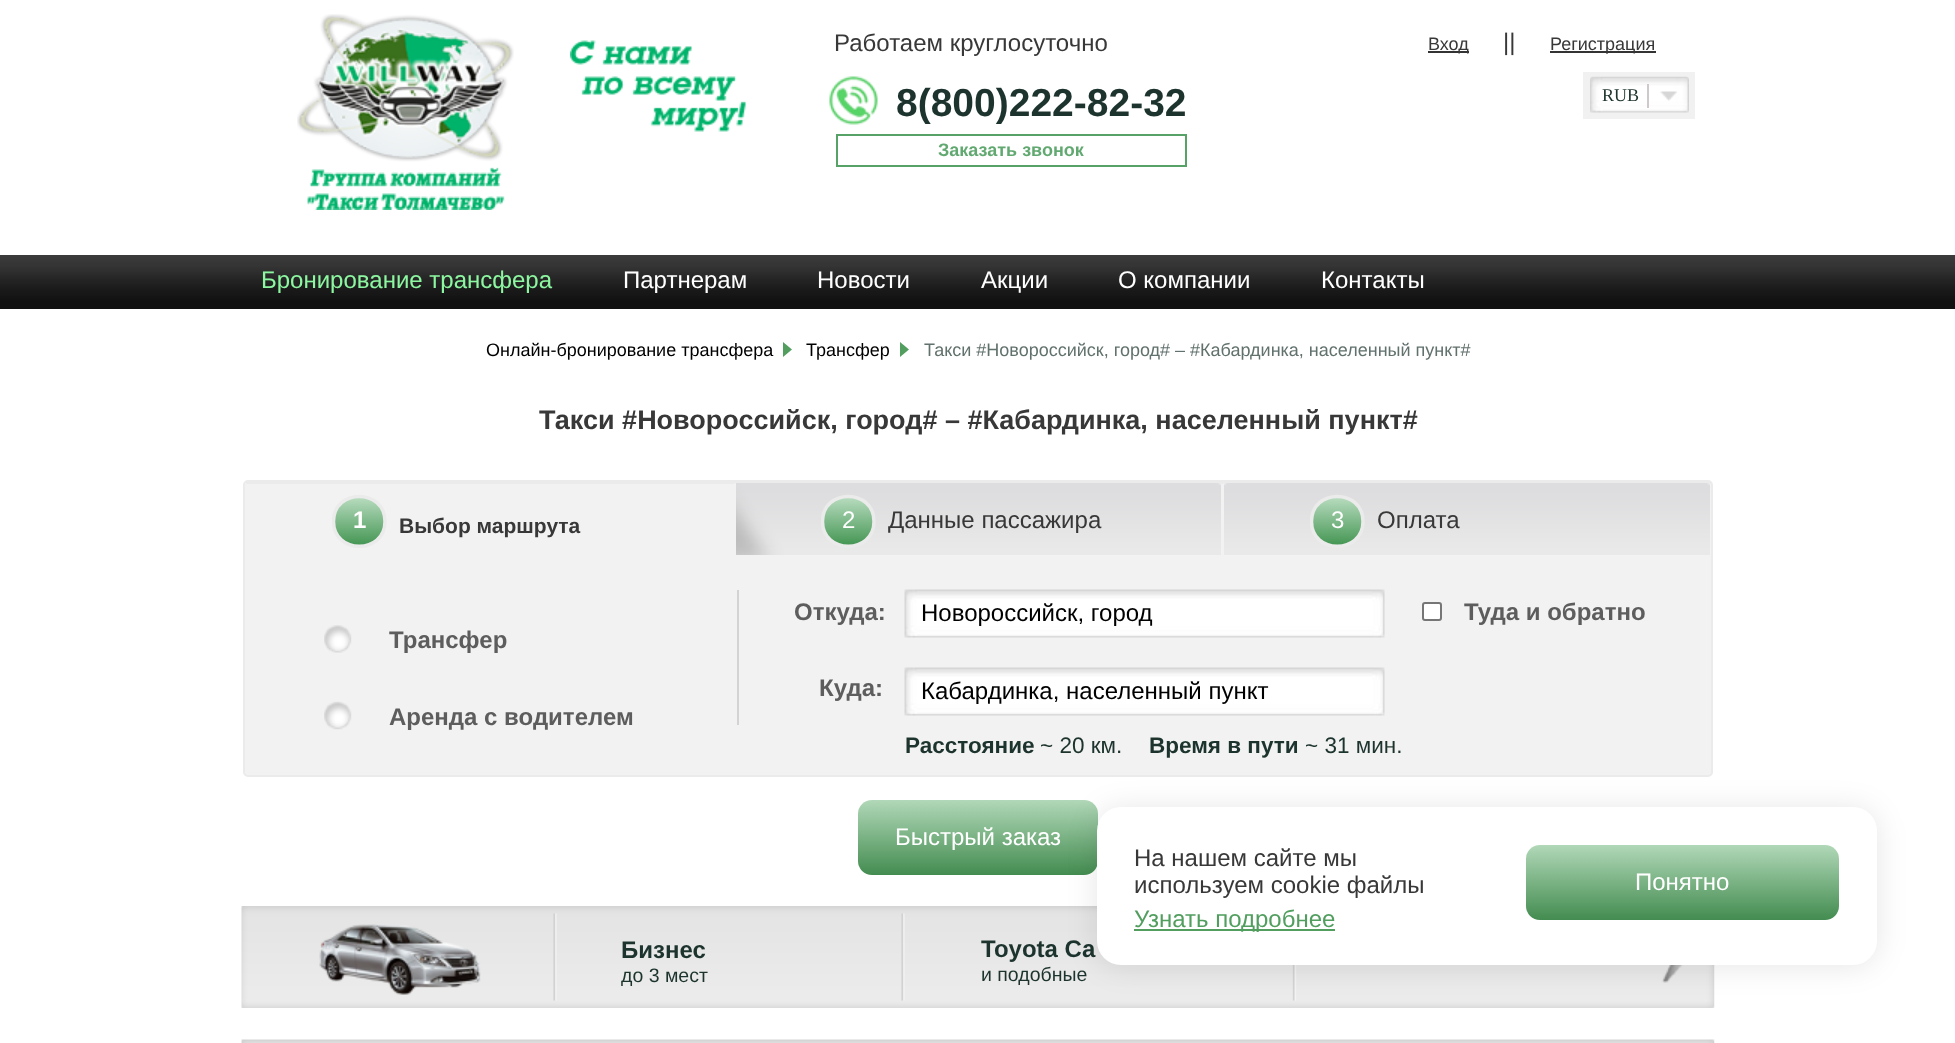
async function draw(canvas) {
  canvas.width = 1955
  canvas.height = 1043
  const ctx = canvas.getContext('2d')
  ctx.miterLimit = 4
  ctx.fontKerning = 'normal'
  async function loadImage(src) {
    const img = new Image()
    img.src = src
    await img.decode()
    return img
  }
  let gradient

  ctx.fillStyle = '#fff'
  ctx.fillRect(0, 0, 1955, 1043)
  ctx.drawImage(await loadImage('image0.png'), 297, 14, 217, 196)
  ctx.drawImage(await loadImage('image1.png'), 570, 40, 176, 92)
  ctx.font = '24px Liberation Sans'
  ctx.fillStyle = '#383838'
  ctx.fillText('Работаем круглосуточно', 834, 51)
  ctx.fillStyle = '#333'
  ctx.fillRect(1428, 51, 41, 2)
  ctx.font = '18px Liberation Sans'
  ctx.fillStyle = '#383838'
  ctx.fillText('Вход', 1428, 50)
  ctx.font = '24px Liberation Sans'
  ctx.fillText('||', 1503, 50)
  ctx.fillStyle = '#333'
  ctx.fillRect(1550, 51, 106, 2)
  ctx.font = '18px Liberation Sans'
  ctx.fillStyle = '#383838'
  ctx.fillText('Регистрация', 1550, 50)
  ctx.drawImage(await loadImage('image2.png'), 829, 76, 49, 49)
  ctx.font = 'bold 39px Liberation Sans'
  ctx.fillStyle = '#1d342e'
  ctx.fillText('8(800)222-82-32', 896, 116)
  ctx.strokeStyle = '#57a267'
  ctx.lineWidth = 2
  ctx.strokeRect(837, 135, 349, 31)
  ctx.font = 'bold 18px Liberation Sans'
  ctx.fillStyle = '#62a971'
  ctx.fillText('Заказать звонок', 938, 156)
  ctx.fillStyle = '#f1f1f1'
  ctx.fillRect(1583, 72, 112, 47)
  ctx.drawImage(await loadImage('image3.png'), 1590, 76, 99, 37)
  ctx.font = '18px Liberation Serif'
  ctx.fillStyle = '#1d342e'
  ctx.fillText('RUB', 1602, 101)
  ctx.drawImage(await loadImage('image4.png'), 1660, 91, 17, 10)
  ctx.fillStyle = '#cecacb'
  ctx.fillRect(1647, 84, 2, 24)
  ctx.drawImage(await loadImage('image5.png'), 0, 255, 1955, 54)
  ctx.font = '24px Liberation Sans'
  ctx.fillStyle = '#8cf7a0'
  ctx.fillText('Бронирование трансфера', 261, 288)
  ctx.fillStyle = '#fff'
  ctx.fillText('Партнерам', 623, 288)
  ctx.fillText('Новости', 817, 288)
  ctx.fillText('Акции', 981, 288)
  ctx.fillText('О компании', 1118, 288)
  ctx.fillText('Контакты', 1321, 288)
  ctx.font = '18px Liberation Sans'
  ctx.fillStyle = '#000'
  ctx.fillText('Онлайн-бронирование трансфера', 486, 356)
  ctx.fillStyle = '#519e5f'
  ctx.beginPath()
  ctx.moveTo(783, 357)
  ctx.lineTo(783, 342)
  ctx.lineTo(792, 349.5)
  ctx.closePath()
  ctx.fill()
  ctx.fillStyle = '#000'
  ctx.fillText('Трансфер', 806, 356)
  ctx.fillStyle = '#519e5f'
  ctx.beginPath()
  ctx.moveTo(900, 357)
  ctx.lineTo(900, 342)
  ctx.lineTo(909, 349.5)
  ctx.closePath()
  ctx.fill()
  ctx.fillStyle = '#61716d'
  ctx.fillText('Такси #Новороссийск, город# – #Кабардинка, населенный пункт#', 924, 356)
  ctx.font = 'bold 27px Liberation Sans'
  ctx.fillStyle = '#383838'
  ctx.fillText('Такси #Новороссийск, город# – #Кабардинка, населенный пункт#', 539, 429)
  ctx.fillStyle = '#f2f2f2'
  ctx.beginPath()
  ctx.moveTo(248, 483)
  ctx.lineTo(1708, 483)
  ctx.bezierCurveTo(1710, 483, 1712, 484, 1712, 484)
  ctx.lineTo(1712, 772)
  ctx.bezierCurveTo(1712, 774, 1710, 776, 1708, 776)
  ctx.lineTo(248, 776)
  ctx.bezierCurveTo(246, 776, 244, 774, 244, 772)
  ctx.lineTo(244, 484)
  ctx.bezierCurveTo(244, 484, 246, 483, 248, 483)
  ctx.closePath()
  ctx.fill()
  ctx.beginPath()
  ctx.roundRect(244, 481, 1468, 295, 4)
  ctx.strokeStyle = '#ebebeb'
  ctx.stroke()
  ctx.fillStyle = '#ebebeb'
  ctx.fillRect(246, 482, 1466, 2)
  gradient = ctx.createLinearGradient(359, 496, 359, 547)
  gradient.addColorStop(0, '#bbdec2')
  gradient.addColorStop(1, '#40934f')
  ctx.fillStyle = gradient
  ctx.beginPath()
  ctx.moveTo(385, 521)
  ctx.bezierCurveTo(385, 555, 333, 555, 333, 521)
  ctx.bezierCurveTo(333, 488, 385, 488, 385, 521)
  ctx.closePath()
  ctx.fill()
  ctx.save()
  ctx.beginPath()
  ctx.rect(332, 494, 55, 54)
  ctx.clip()
  ctx.beginPath()
  ctx.moveTo(385, 521.5)
  ctx.bezierCurveTo(385, 554.5, 333.5, 554.5, 333.5, 521.5)
  ctx.bezierCurveTo(333.5, 488, 385, 488, 385, 521.5)
  ctx.closePath()
  ctx.lineWidth = 3.5
  ctx.stroke()
  ctx.restore()
  ctx.font = 'bold 24px Liberation Sans'
  ctx.fillStyle = '#fff'
  ctx.fillText('1', 353, 528)
  ctx.font = 'bold 21px Liberation Sans'
  ctx.fillStyle = '#383838'
  ctx.fillText('Выбор маршрута', 399, 533)
  ctx.drawImage(await loadImage('image6.png'), 736, 483, 485, 72)
  ctx.fillStyle = '#f0f0f0'
  ctx.fillRect(1223, 483, 2, 1)
  ctx.fillRect(734, 483, 2, 1)
  gradient = ctx.createLinearGradient(848, 496, 848, 547)
  gradient.addColorStop(0, '#bbdec2')
  gradient.addColorStop(1, '#40934f')
  ctx.fillStyle = gradient
  ctx.beginPath()
  ctx.moveTo(874, 521)
  ctx.bezierCurveTo(874, 555, 822, 555, 822, 521)
  ctx.bezierCurveTo(822, 488, 874, 488, 874, 521)
  ctx.closePath()
  ctx.fill()
  ctx.save()
  ctx.beginPath()
  ctx.rect(821, 494, 55, 54)
  ctx.clip()
  ctx.beginPath()
  ctx.moveTo(874, 521.5)
  ctx.bezierCurveTo(874, 554.5, 822.5, 554.5, 822.5, 521.5)
  ctx.bezierCurveTo(822.5, 488, 874, 488, 874, 521.5)
  ctx.closePath()
  ctx.lineWidth = 3.5
  ctx.stroke()
  ctx.restore()
  ctx.font = '24px Liberation Sans'
  ctx.fillStyle = '#fff'
  ctx.fillText('2', 842, 528)
  ctx.fillStyle = '#383838'
  ctx.fillText('Данные пассажира', 888, 528)
  ctx.drawImage(await loadImage('image7.png'), 1224, 483, 486, 72)
  gradient = ctx.createLinearGradient(1337, 496, 1337, 547)
  gradient.addColorStop(0, '#bbdec2')
  gradient.addColorStop(1, '#40934f')
  ctx.fillStyle = gradient
  ctx.beginPath()
  ctx.moveTo(1363, 521)
  ctx.bezierCurveTo(1363, 555, 1311, 555, 1311, 521)
  ctx.bezierCurveTo(1311, 488, 1363, 488, 1363, 521)
  ctx.closePath()
  ctx.fill()
  ctx.save()
  ctx.beginPath()
  ctx.rect(1310, 494, 55, 54)
  ctx.clip()
  ctx.beginPath()
  ctx.moveTo(1363, 521.5)
  ctx.bezierCurveTo(1363, 554.5, 1311.5, 554.5, 1311.5, 521.5)
  ctx.bezierCurveTo(1311.5, 488, 1363, 488, 1363, 521.5)
  ctx.closePath()
  ctx.lineWidth = 3.5
  ctx.stroke()
  ctx.restore()
  ctx.fillStyle = '#fff'
  ctx.fillText('3', 1331, 528)
  ctx.fillStyle = '#383838'
  ctx.fillText('Оплата', 1377, 528)
  ctx.fillStyle = '#d4d2d2'
  ctx.fillRect(737, 590, 2, 135)
  ctx.font = 'bold 24px Liberation Sans'
  ctx.fillStyle = '#5d5d5d'
  ctx.fillText('Откуда:', 794, 620)
  ctx.drawImage(await loadImage('image8.png'), 904, 589, 481, 49)
  ctx.font = '24px Liberation Sans'
  ctx.fillStyle = '#000'
  ctx.fillText('Новороссийск, город', 921, 621)
  ctx.fillStyle = '#fff'
  ctx.beginPath()
  ctx.roundRect(1423, 603, 18, 17, 2)
  ctx.fill()
  ctx.strokeStyle = '#767676'
  ctx.stroke()
  ctx.font = 'bold 24px Liberation Sans'
  ctx.fillStyle = '#5d5d5d'
  ctx.fillText('Туда и обратно', 1464, 620)
  ctx.drawImage(await loadImage('image9.png'), 324, 625, 28, 28)
  ctx.fillText('Трансфер', 389, 648)
  ctx.fillText('Куда:', 819, 696)
  ctx.drawImage(await loadImage('image8.png'), 904, 667, 481, 49)
  ctx.font = '24px Liberation Sans'
  ctx.fillStyle = '#000'
  ctx.fillText('Кабардинка, населенный пункт', 921, 699)
  ctx.drawImage(await loadImage('image10.png'), 324, 701, 28, 29)
  ctx.font = 'bold 24px Liberation Sans'
  ctx.fillStyle = '#5d5d5d'
  ctx.fillText('Аренда с водителем', 389, 725)
  ctx.font = 'bold 22.5px Liberation Sans'
  ctx.fillStyle = '#1d342e'
  ctx.fillText('Расстояние', 905, 753)
  ctx.font = '22.5px Liberation Sans'
  ctx.fillText('~ 20 км.', 1040, 753)
  ctx.font = 'bold 22.5px Liberation Sans'
  ctx.fillText('Время в пути', 1149, 753)
  ctx.font = '22.5px Liberation Sans'
  ctx.fillText('~ 31 мин.', 1305, 753)
  gradient = ctx.createLinearGradient(978, 875, 978, 800)
  gradient.addColorStop(0, '#438c50')
  gradient.addColorStop(1, '#b1d8b8')
  ctx.fillStyle = gradient
  ctx.beginPath()
  ctx.roundRect(858, 800, 240, 75, 14)
  ctx.fill()
  ctx.font = '24px Liberation Sans'
  ctx.fillStyle = '#fff'
  ctx.fillText('Быстрый заказ', 895, 845)
  ctx.drawImage(await loadImage('image11.png'), 241, 906, 1474, 102)
  ctx.drawImage(await loadImage('image12.png'), 319, 924, 162, 71)
  ctx.font = 'bold 24px Liberation Sans'
  ctx.fillStyle = '#1d342e'
  ctx.fillText('Бизнес', 621, 958)
  ctx.font = '19.5px Liberation Sans'
  ctx.fillText('до 3 мест', 621, 982)
  ctx.font = 'bold 24px Liberation Sans'
  ctx.fillText('Toyota Ca', 981, 957)
  ctx.font = '19.5px Liberation Sans'
  ctx.fillText('и подобные', 981, 981)
  ctx.drawImage(await loadImage('image13.png'), 241, 1039, 1474, 4)
  ctx.fillStyle = '#0000001a'
  ctx.filter = 'blur(15px)'
  ctx.beginPath()
  ctx.roundRect(1097, 809, 780, 157, 24)
  ctx.fill()
  ctx.filter = 'none'
  ctx.fillStyle = '#fff'
  ctx.beginPath()
  ctx.roundRect(1097, 807, 780, 158, 24)
  ctx.fill()
  ctx.font = '24px Liberation Sans'
  ctx.fillStyle = '#383838'
  ctx.fillText('На нашем сайте мы', 1134, 866)
  ctx.fillText('используем cookie файлы', 1134, 893)
  ctx.fillStyle = '#519e5f'
  ctx.fillRect(1134, 929, 201, 2)
  ctx.fillText('Узнать подробнее', 1134, 927)
  gradient = ctx.createLinearGradient(1682, 920, 1682, 845)
  gradient.addColorStop(0, '#438c50')
  gradient.addColorStop(1, '#b1d8b8')
  ctx.fillStyle = gradient
  ctx.beginPath()
  ctx.roundRect(1526, 845, 313, 75, 14)
  ctx.fill()
  ctx.fillStyle = '#fff'
  ctx.fillText('Понятно', 1635, 890)
}

draw(document.querySelector('canvas'))
